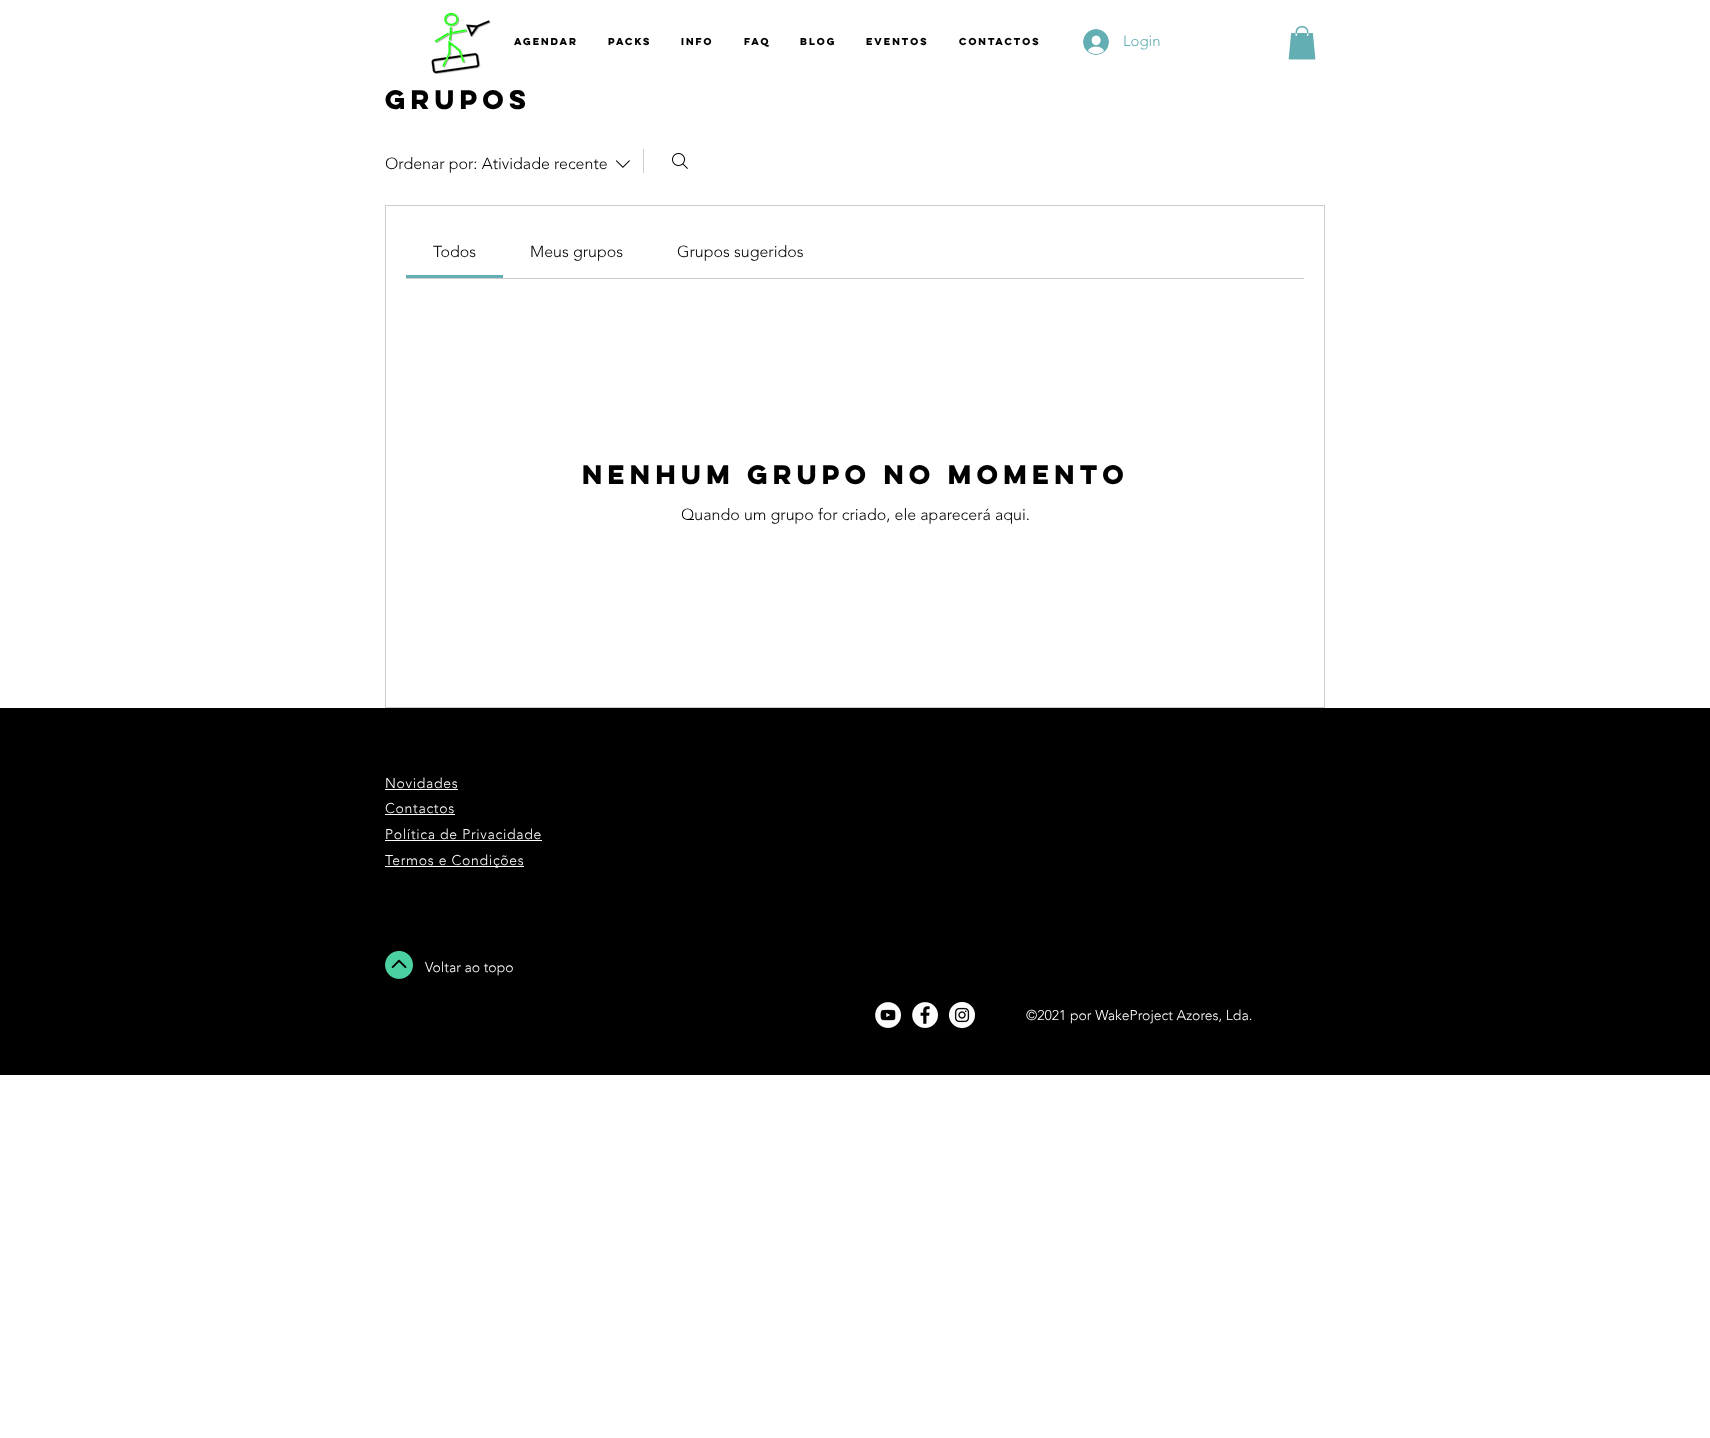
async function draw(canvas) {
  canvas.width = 1710
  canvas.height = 1438
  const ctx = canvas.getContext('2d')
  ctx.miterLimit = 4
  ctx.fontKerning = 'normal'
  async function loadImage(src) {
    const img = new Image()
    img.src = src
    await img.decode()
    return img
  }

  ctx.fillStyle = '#fff'
  ctx.fillRect(0, 0, 1710, 1438)
  ctx.drawImage(await loadImage('image0.png'), 431, 12, 60, 62)
  ctx.font = 'bold 9px "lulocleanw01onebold"'
  ctx.fillStyle = '#000'
  ctx.fillText('Agendar', 514, 45)
  ctx.fillText('Packs', 608, 45)
  ctx.fillText('Info', 681, 45)
  ctx.fillText('FAQ', 744, 45)
  ctx.fillText('Blog', 800, 45)
  ctx.fillText('Eventos', 866, 45)
  ctx.fillText('Contactos', 959, 45)
  ctx.drawImage(await loadImage('image1.png'), 1083, 29, 26, 26)
  ctx.font = '300 15px "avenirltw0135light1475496"'
  ctx.fillStyle = '#62aeb3'
  ctx.fillText('Login', 1123, 46)
  ctx.drawImage(await loadImage('image2.png'), 1288, 26, 28, 34)
  ctx.font = 'bold 24px "lulocleanw01onebold"'
  ctx.fillStyle = '#000'
  ctx.fillText('Grupos', 385, 109)
  ctx.font = '300 16px "avenirltw0135light1475496"'
  ctx.fillText('Ordenar por: Atividade recente', 385, 169)
  ctx.drawImage(await loadImage('image3.png'), 615, 160, 15, 8)
  ctx.fillStyle = '#ccc'
  ctx.fillRect(643, 149, 1, 24)
  ctx.drawImage(await loadImage('image4.png'), 672, 153, 16, 16)
  ctx.strokeStyle = '#ccc'
  ctx.strokeRect(385.5, 205.5, 939, 502)
  ctx.fillRect(406, 278, 898, 1)
  ctx.fillStyle = '#62aeb3'
  ctx.fillRect(406, 275, 97, 3)
  ctx.fillStyle = '#000'
  ctx.fillText('Todos', 433, 257)
  ctx.fillText('Meus grupos', 530, 257)
  ctx.fillText('Grupos sugeridos', 677, 257)
  ctx.font = 'bold 24px "lulocleanw01onebold"'
  ctx.fillText('Nenhum grupo no momento', 582, 484)
  ctx.font = '300 16px "avenirltw0135light1475496"'
  ctx.fillText('Quando um grupo for criado, ele aparecerá aqui.', 681, 520)
  ctx.fillRect(0, 708, 1710, 367)
  ctx.letterSpacing = '0.7px'
  ctx.font = '300 14px "avenirltw0135light1475496"'
  ctx.fillStyle = '#fff'
  ctx.fillText('Novidades', 385, 788)
  ctx.fillRect(385, 789, 73, 1)
  ctx.fillText('Contactos', 385, 813)
  ctx.fillRect(385, 814, 70, 1)
  ctx.fillText('Política de Privacidade', 385, 839)
  ctx.fillRect(385, 840, 157, 1)
  ctx.fillRect(385, 866, 139, 1)
  ctx.fillText('Termos e Condições', 385, 865)
  ctx.drawImage(await loadImage('image5.png'), 385, 951, 28, 28)
  ctx.letterSpacing = '0px'
  ctx.fillText('Voltar ao topo', 425, 972)
  ctx.drawImage(await loadImage('image6.png'), 875, 1002, 26, 26)
  ctx.drawImage(await loadImage('image7.png'), 912, 1002, 26, 26)
  ctx.drawImage(await loadImage('image8.png'), 949, 1002, 26, 26)
  ctx.fillText('©2021 por WakeProject Azores, Lda.', 1026, 1020)
}

draw(document.querySelector('canvas'))
